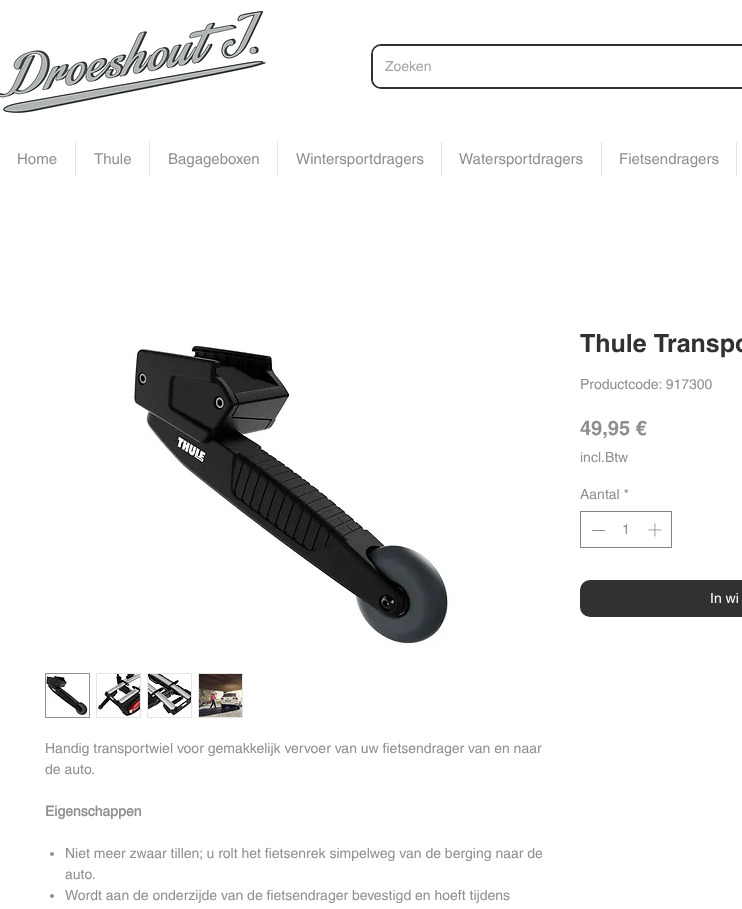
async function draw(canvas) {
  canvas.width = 742
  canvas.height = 909
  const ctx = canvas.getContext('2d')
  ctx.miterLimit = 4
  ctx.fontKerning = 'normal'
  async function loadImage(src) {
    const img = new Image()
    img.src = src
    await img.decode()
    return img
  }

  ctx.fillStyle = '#fff'
  ctx.fillRect(0, 0, 742, 909)
  ctx.drawImage(await loadImage('image0.png'), 0, 11, 266, 102)
  ctx.beginPath()
  ctx.roundRect(372, 45, 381, 43, 9)
  ctx.strokeStyle = '#313131'
  ctx.lineWidth = 2
  ctx.stroke()
  ctx.beginPath()
  ctx.roundRect(373, 46, 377, 41, 8)
  ctx.fill()
  ctx.font = '14px helvetica'
  ctx.fillStyle = '#a4a4a4'
  ctx.fillText('Zoeken', 385, 71)
  ctx.font = '15px helvetica'
  ctx.fillStyle = '#8f8f8f'
  ctx.fillText('Home', 17, 164)
  ctx.fillStyle = '#e4e4e4'
  ctx.fillRect(75, 142, 1, 34)
  ctx.fillStyle = '#8f8f8f'
  ctx.fillText('Thule', 94, 164)
  ctx.fillStyle = '#e4e4e4'
  ctx.fillRect(149, 142, 1, 34)
  ctx.fillStyle = '#8f8f8f'
  ctx.fillText('Bagageboxen', 168, 164)
  ctx.fillStyle = '#e4e4e4'
  ctx.fillRect(277, 142, 1, 34)
  ctx.fillStyle = '#8f8f8f'
  ctx.fillText('Wintersportdragers', 296, 164)
  ctx.fillStyle = '#e4e4e4'
  ctx.fillRect(441, 142, 1, 34)
  ctx.fillStyle = '#8f8f8f'
  ctx.fillText('Watersportdragers', 459, 164)
  ctx.fillStyle = '#e4e4e4'
  ctx.fillRect(601, 142, 1, 34)
  ctx.fillStyle = '#8f8f8f'
  ctx.fillText('Fietsendragers', 619, 164)
  ctx.fillStyle = '#e4e4e4'
  ctx.fillRect(736, 142, 1, 34)
  ctx.font = 'bold 25px helvetica'
  ctx.fillStyle = '#313131'
  ctx.fillText('Thule Transpo', 580, 352)
  ctx.font = '14px helvetica'
  ctx.fillStyle = '#8f8f8f'
  ctx.fillText('Productcode: 917300', 580, 389)
  ctx.font = 'bold 20px helvetica'
  ctx.fillText('49,95 €', 580, 435)
  ctx.font = '14px helvetica'
  ctx.fillText('incl.Btw', 580, 462)
  ctx.fillText('Aantal *', 580, 499)
  ctx.strokeStyle = '#838383'
  ctx.lineWidth = 1
  ctx.strokeRect(580.5, 511.5, 91, 36)
  ctx.fillRect(592, 530, 13, 1)
  ctx.fillText('1', 622, 534)
  ctx.drawImage(await loadImage('image1.png'), 648, 523, 14, 14)
  ctx.fillStyle = '#313131'
  ctx.beginPath()
  ctx.roundRect(580, 580, 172, 37, 10)
  ctx.fill()
  ctx.fillStyle = '#fff'
  ctx.fillText('In wi', 710, 603)
  ctx.drawImage(await loadImage('image2.png'), 134, 345, 316, 300)
  ctx.strokeStyle = '#8f8f8f'
  ctx.strokeRect(45.5, 673.5, 44, 44)
  ctx.drawImage(await loadImage('image3.png'), 46, 674, 43, 43)
  ctx.fillStyle = '#e4e4e4'
  ctx.fillRect(96, 673, 45, 45)
  ctx.drawImage(await loadImage('image4.png'), 97, 674, 43, 43)
  ctx.fillRect(147, 673, 45, 45)
  ctx.drawImage(await loadImage('image5.png'), 148, 674, 43, 43)
  ctx.fillRect(198, 673, 45, 45)
  ctx.drawImage(await loadImage('image6.png'), 199, 674, 43, 43)
  ctx.fillStyle = '#8f8f8f'
  ctx.fillText('Handig transportwiel voor gemakkelijk vervoer van uw fietsendrager van en naar', 45, 753)
  ctx.fillText('de auto.', 45, 774)
  ctx.font = 'bold 14px "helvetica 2"'
  ctx.fillText('Eigenschappen', 45, 816)
  ctx.beginPath()
  ctx.arc(52, 854, 2, 0, 2 * Math.PI)
  ctx.fill()
  ctx.font = '14px helvetica'
  ctx.fillText('Niet meer zwaar tillen; u rolt het fietsenrek simpelweg van de berging naar de', 65, 858)
  ctx.fillText('auto.', 65, 879)
  ctx.beginPath()
  ctx.arc(52, 896, 2, 0, 2 * Math.PI)
  ctx.fill()
  ctx.fillText('Wordt aan de onderzijde van de fietsendrager bevestigd en hoeft tijdens', 65, 900)
}

draw(document.querySelector('canvas'))
